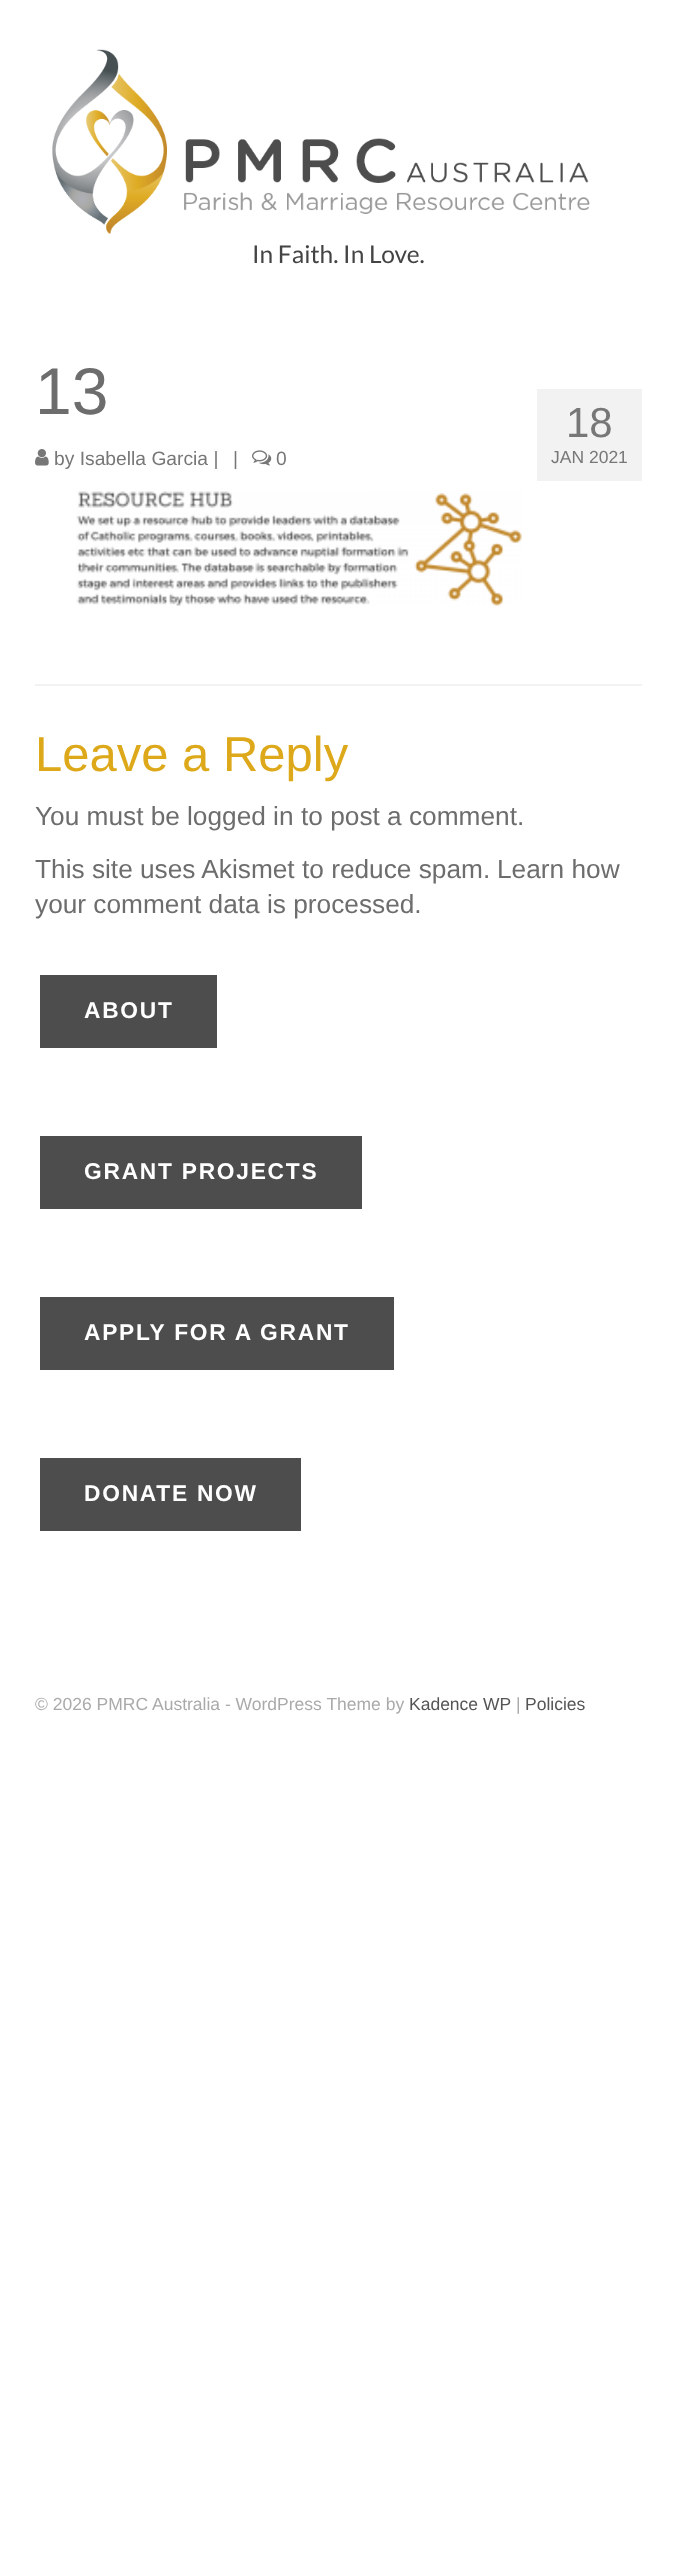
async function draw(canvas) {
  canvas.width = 677
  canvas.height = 2558
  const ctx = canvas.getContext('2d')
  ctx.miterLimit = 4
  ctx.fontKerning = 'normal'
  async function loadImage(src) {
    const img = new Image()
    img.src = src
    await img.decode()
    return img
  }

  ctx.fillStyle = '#fff'
  ctx.fillRect(0, 0, 677, 2558)
  ctx.drawImage(await loadImage('image0.png'), 52, 49, 538, 185)
  ctx.font = '24.5px Lato'
  ctx.fillStyle = '#444'
  ctx.fillText('In Faith. In Love.', 252, 263)
  ctx.font = '66px Liberation Sans'
  ctx.fillStyle = '#6d6d6d'
  ctx.fillText('13', 35, 414)
  ctx.drawImage(await loadImage('image1.png'), 35, 449, 14, 17)
  ctx.font = '19.25px Liberation Sans'
  ctx.fillStyle = '#777'
  ctx.fillText('by Isabella Garcia |', 54, 465)
  ctx.fillText('|', 233, 465)
  ctx.drawImage(await loadImage('image2.png'), 252, 450, 20, 16)
  ctx.fillText('0', 276, 465)
  ctx.fillStyle = '#f2f2f2'
  ctx.fillRect(537, 389, 105, 92)
  ctx.font = '42px Liberation Sans'
  ctx.fillStyle = '#777'
  ctx.fillText('18', 566, 437)
  ctx.font = '17.5px Liberation Sans'
  ctx.fillText('JAN 2021', 551, 463)
  ctx.drawImage(await loadImage('image3.png'), 76, 491, 446, 115)
  ctx.fillStyle = '#f2f2f2'
  ctx.fillRect(35, 684, 607, 2)
  ctx.font = '49px Liberation Sans'
  ctx.fillStyle = '#dda91a'
  ctx.fillText('Leave a Reply', 35, 771)
  ctx.font = '26.25px Liberation Sans'
  ctx.fillStyle = '#6d6d6d'
  ctx.fillText('You must be', 35, 825)
  ctx.fillText('logged in', 187, 825)
  ctx.fillText('to post a comment.', 301, 825)
  ctx.fillText('This site uses Akismet to reduce spam.', 35, 878)
  ctx.fillText('Learn how', 497, 878)
  ctx.fillText('your comment data is processed.', 35, 913)
  ctx.fillStyle = '#4d4d4d'
  ctx.fillRect(40, 975, 177, 73)
  ctx.letterSpacing = '1.75px'
  ctx.font = 'bold 22.75px Liberation Sans'
  ctx.fillStyle = '#fff'
  ctx.fillText('ABOUT', 84, 1018)
  ctx.fillStyle = '#4d4d4d'
  ctx.fillRect(40, 1136, 322, 73)
  ctx.fillStyle = '#fff'
  ctx.fillText('GRANT PROJECTS', 84, 1179)
  ctx.fillStyle = '#4d4d4d'
  ctx.fillRect(40, 1297, 354, 73)
  ctx.fillStyle = '#fff'
  ctx.fillText('APPLY FOR A GRANT', 84, 1340)
  ctx.fillStyle = '#4d4d4d'
  ctx.fillRect(40, 1458, 261, 73)
  ctx.fillStyle = '#fff'
  ctx.fillText('DONATE NOW', 84, 1501)
  ctx.letterSpacing = '0px'
  ctx.font = '17.5px Liberation Sans'
  ctx.fillStyle = '#aaa'
  ctx.fillText('© 2026 PMRC Australia - WordPress Theme by', 35, 1710)
  ctx.fillStyle = '#555'
  ctx.fillText('Kadence WP', 409, 1710)
  ctx.fillStyle = '#aaa'
  ctx.fillText('|', 516, 1710)
  ctx.fillStyle = '#555'
  ctx.fillText('Policies', 525, 1710)
}

draw(document.querySelector('canvas'))
